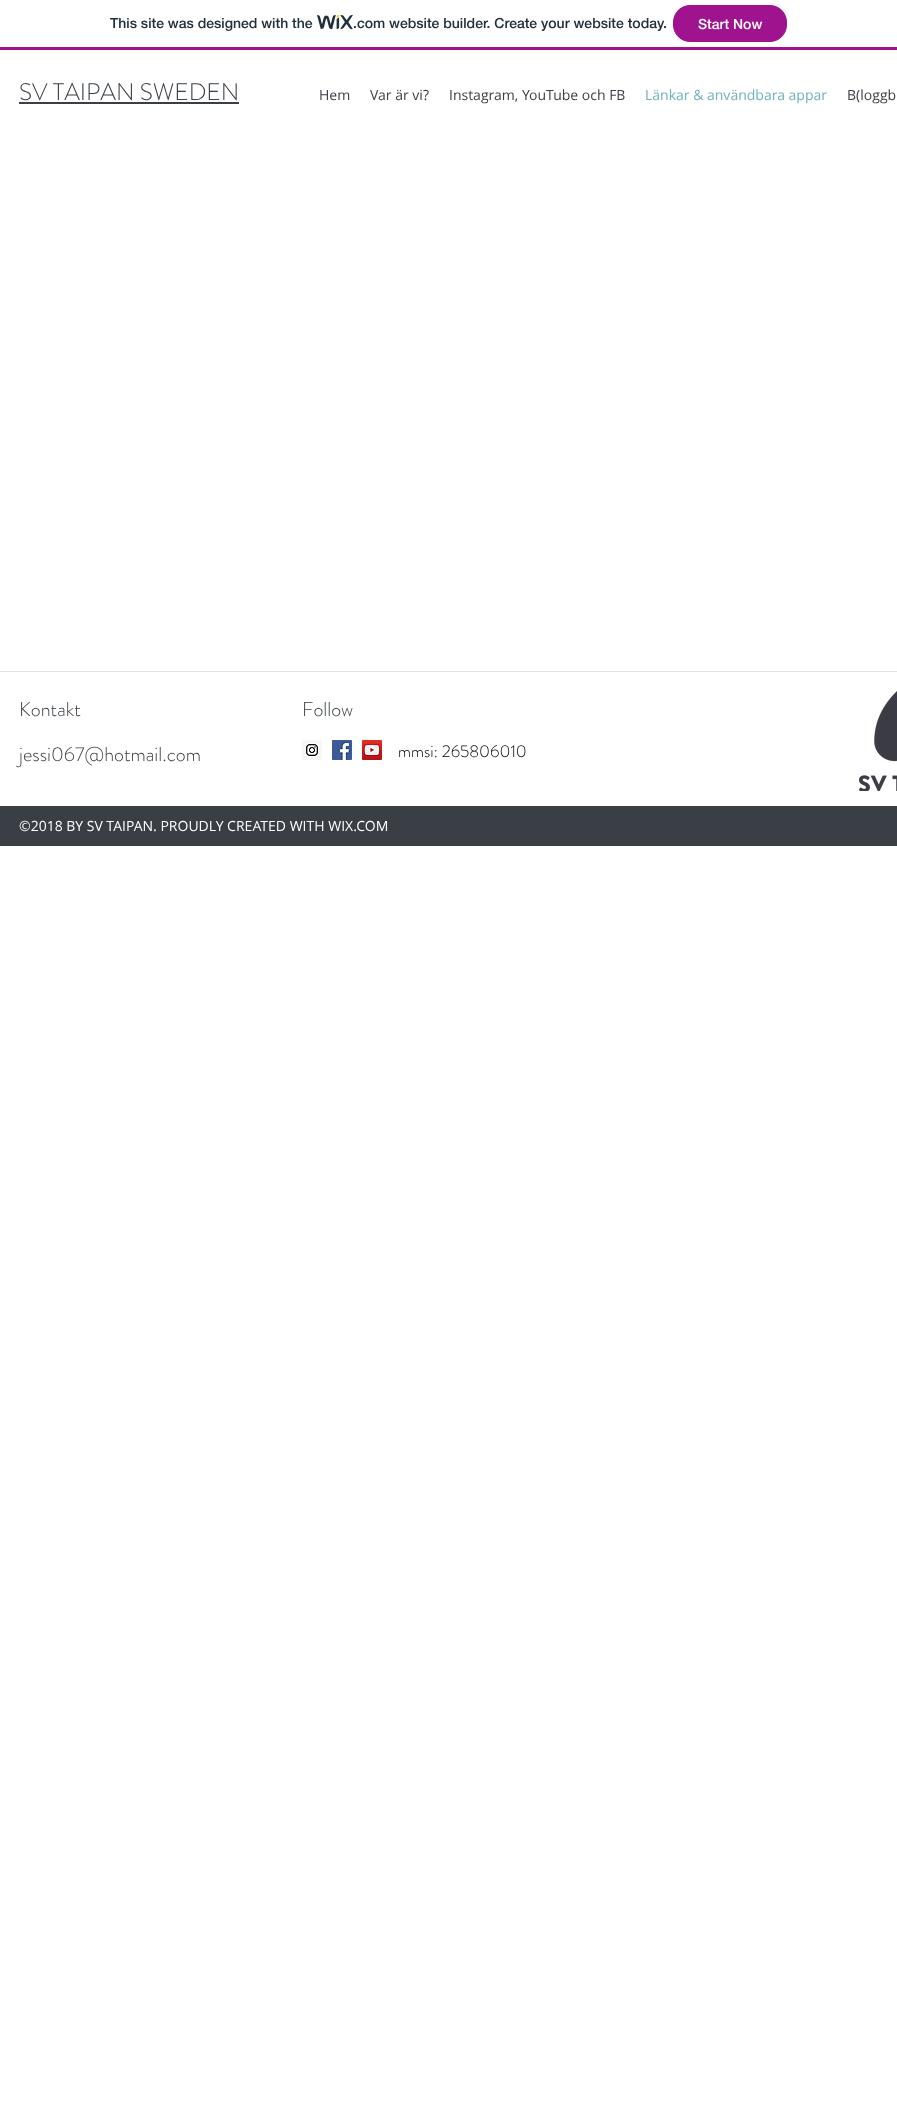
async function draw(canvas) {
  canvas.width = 897
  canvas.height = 2116
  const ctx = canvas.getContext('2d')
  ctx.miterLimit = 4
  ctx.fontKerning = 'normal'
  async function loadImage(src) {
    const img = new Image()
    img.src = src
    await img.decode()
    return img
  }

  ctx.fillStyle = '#fff'
  ctx.fillRect(0, 0, 897, 2116)
  ctx.fillStyle = '#a0138e'
  ctx.fillRect(0, 47, 897, 3)
  ctx.font = '500 14px "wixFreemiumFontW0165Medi"'
  ctx.fillStyle = '#20303c'
  ctx.fillText('This site was designed with the', 110, 28)
  ctx.drawImage(await loadImage('image0.png'), 317, 15, 36, 15)
  ctx.fillText('.com website builder. Create your website today.', 353, 28)
  ctx.fillStyle = '#a0138e'
  ctx.beginPath()
  ctx.roundRect(673.5, 5.5, 113, 36, 16.5)
  ctx.fill()
  ctx.strokeStyle = '#a0138e'
  ctx.stroke()
  ctx.fillStyle = '#fff'
  ctx.fillText('Start Now', 698, 29)
  ctx.font = '300 24px "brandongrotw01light"'
  ctx.fillStyle = '#393f44'
  ctx.fillText('SV TAIPAN SWEDEN', 19, 100)
  ctx.fillRect(19, 102, 220, 2)
  ctx.font = '14px Open Sans'
  ctx.fillText('Hem', 319, 100)
  ctx.fillText('Var är vi?', 370, 100)
  ctx.fillText('Instagram, YouTube och FB', 449, 100)
  ctx.fillStyle = '#70b2b9'
  ctx.fillText('Länkar & användbara appar', 645, 100)
  ctx.fillStyle = '#393f44'
  ctx.fillText('B(loggb', 847, 100)
  ctx.fillStyle = '#e1e2e3'
  ctx.fillRect(0, 671, 897, 1)
  ctx.font = '300 20px "brandongrotw01light"'
  ctx.fillStyle = '#393f44'
  ctx.fillText('Kontakt', 19, 716)
  ctx.fillText('Follow', 302, 716)
  ctx.drawImage(await loadImage('image1.png'), 859, 691, 38, 100)
  ctx.fillText('jessi067@hotmail.com', 19, 761)
  ctx.drawImage(await loadImage('image2.png'), 302, 740, 20, 20)
  ctx.drawImage(await loadImage('image3.png'), 332, 740, 20, 20)
  ctx.drawImage(await loadImage('image4.png'), 362, 740, 20, 20)
  ctx.font = '300 17px "brandongrotw01light"'
  ctx.fillStyle = '#000'
  ctx.fillText('mmsi: 265806010', 398, 757)
  ctx.fillStyle = '#393f44'
  ctx.fillRect(0, 806, 897, 40)
  ctx.font = '14px Open Sans'
  ctx.fillStyle = '#fff'
  ctx.fillText('©2018 BY SV TAIPAN. PROUDLY CREATED WITH WIX.COM', 19, 831)
}

draw(document.querySelector('canvas'))
